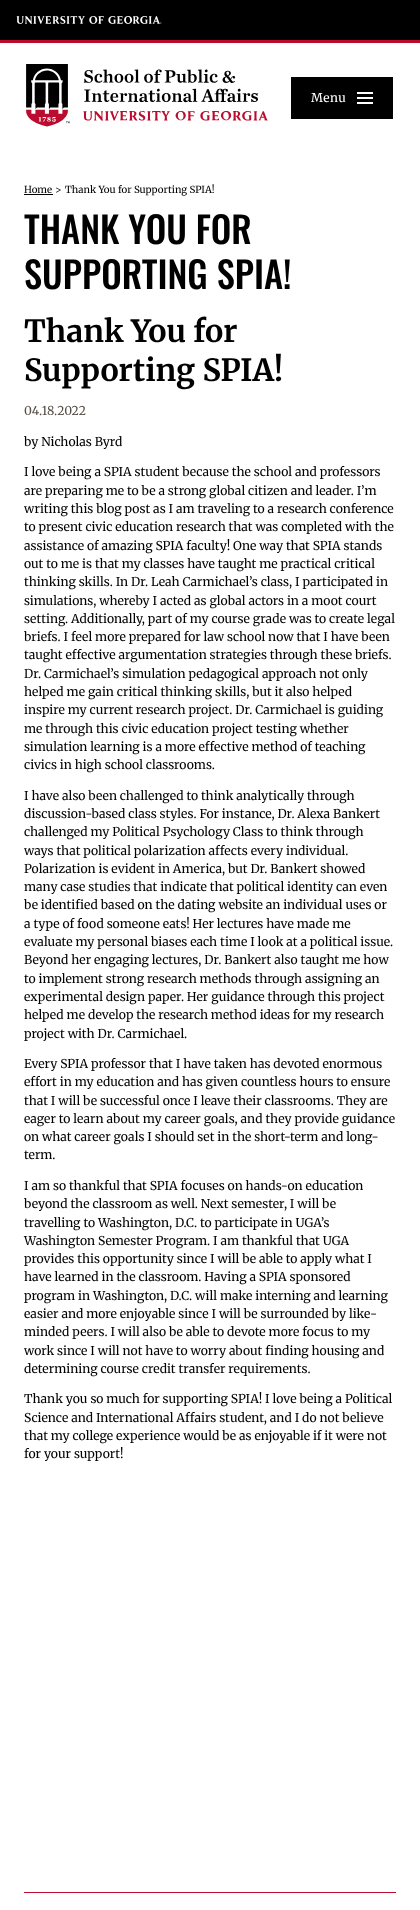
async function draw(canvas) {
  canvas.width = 420
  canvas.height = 1910
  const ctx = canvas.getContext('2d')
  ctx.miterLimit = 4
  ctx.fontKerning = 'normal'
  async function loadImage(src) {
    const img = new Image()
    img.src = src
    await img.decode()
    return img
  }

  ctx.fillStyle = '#fff'
  ctx.fillRect(0, 0, 420, 1910)
  ctx.fillStyle = '#000'
  ctx.fillRect(0, 0, 420, 40)
  ctx.fillStyle = '#ba0c2f'
  ctx.fillRect(0, 40, 420, 3)
  ctx.drawImage(await loadImage('image0.png'), 16, 16, 146, 8)
  ctx.drawImage(await loadImage('image1.png'), 26, 64, 242, 63)
  ctx.fillStyle = '#000'
  ctx.fillRect(291, 77, 102, 42)
  ctx.letterSpacing = '0.5px'
  ctx.font = '12px Merriweather'
  ctx.fillStyle = '#fff'
  ctx.fillText('Menu', 311, 102)
  ctx.fillRect(357, 92, 16, 2)
  ctx.fillRect(357, 97, 16, 2)
  ctx.fillRect(357, 102, 16, 2)
  ctx.letterSpacing = '0px'
  ctx.font = '9.75px Merriweather'
  ctx.fillStyle = '#000'
  ctx.fillText('Home', 24, 193)
  ctx.fillRect(24, 194, 29, 1)
  ctx.fillText('>', 55, 193)
  ctx.fillText('Thank You for Supporting SPIA!', 65, 193)
  ctx.font = '500 36.5px Oswald'
  ctx.fillText('THANK YOU FOR', 24, 244)
  ctx.fillText('SUPPORTING SPIA!', 24, 289)
  ctx.font = 'bold 30.5px Merriweather'
  ctx.fillText('Thank You for', 24, 342)
  ctx.fillText('Supporting SPIA!', 24, 381)
  ctx.font = '12.2px Merriweather'
  ctx.fillStyle = '#554f47'
  ctx.fillText('04.18.2022', 24, 415)
  ctx.fillStyle = '#000'
  ctx.fillText('by Nicholas Byrd', 24, 446)
  ctx.fillText('I love being a SPIA student because the school and professors', 24, 476)
  ctx.fillText('are preparing me to be a strong global citizen and leader. I’m', 24, 495)
  ctx.fillText('writing this blog post as I am traveling to a research conference', 24, 513)
  ctx.fillText('to present civic education research that was completed with the', 24, 531)
  ctx.fillText('assistance of amazing SPIA faculty! One way that SPIA stands', 24, 550)
  ctx.fillText('out to me is that my classes have taught me practical critical', 24, 568)
  ctx.fillText('thinking skills. In Dr. Leah Carmichael’s class, I participated in', 24, 586)
  ctx.fillText('simulations, whereby I acted as global actors in a moot court', 24, 605)
  ctx.fillText('setting. Additionally, part of my course grade was to create legal', 24, 623)
  ctx.fillText('briefs. I feel more prepared for law school now that I have been', 24, 641)
  ctx.fillText('taught effective argumentation strategies through these briefs.', 24, 659)
  ctx.fillText('Dr. Carmichael’s simulation pedagogical approach not only', 24, 678)
  ctx.fillText('helped me gain critical thinking skills, but it also helped', 24, 696)
  ctx.fillText('inspire my current research project. Dr. Carmichael is guiding', 24, 714)
  ctx.fillText('me through this civic education project testing whether', 24, 733)
  ctx.fillText('simulation learning is a more effective method of teaching', 24, 751)
  ctx.fillText('civics in high school classrooms.', 24, 769)
  ctx.fillText('I have also been challenged to think analytically through', 24, 800)
  ctx.fillText('discussion-based class styles. For instance, Dr. Alexa Bankert', 24, 818)
  ctx.fillText('challenged my Political Psychology Class to think through', 24, 836)
  ctx.fillText('ways that political polarization affects every individual.', 24, 855)
  ctx.fillText('Polarization is evident in America, but Dr. Bankert showed', 24, 873)
  ctx.fillText('many case studies that indicate that political identity can even', 24, 891)
  ctx.fillText('be identified based on the dating website an individual uses or', 24, 909)
  ctx.fillText('a type of food someone eats! Her lectures have made me', 24, 928)
  ctx.fillText('evaluate my personal biases each time I look at a political issue.', 24, 946)
  ctx.fillText('Beyond her engaging lectures, Dr. Bankert also taught me how', 24, 964)
  ctx.fillText('to implement strong research methods through assigning an', 24, 983)
  ctx.fillText('experimental design paper. Her guidance through this project', 24, 1001)
  ctx.fillText('helped me develop the research method ideas for my research', 24, 1019)
  ctx.fillText('project with Dr. Carmichael.', 24, 1038)
  ctx.fillText('Every SPIA professor that I have taken has devoted enormous', 24, 1068)
  ctx.fillText('effort in my education and has given countless hours to ensure', 24, 1086)
  ctx.fillText('that I will be successful once I leave their classrooms. They are', 24, 1105)
  ctx.fillText('eager to learn about my career goals, and they provide guidance', 24, 1123)
  ctx.fillText('on what career goals I should set in the short-term and long-', 24, 1141)
  ctx.fillText('term.', 24, 1159)
  ctx.fillText('I am so thankful that SPIA focuses on hands-on education', 24, 1190)
  ctx.fillText('beyond the classroom as well. Next semester, I will be', 24, 1208)
  ctx.fillText('travelling to Washington, D.C. to participate in UGA’s', 24, 1227)
  ctx.fillText('Washington Semester Program. I am thankful that UGA', 24, 1245)
  ctx.fillText('provides this opportunity since I will be able to apply what I', 24, 1263)
  ctx.fillText('have learned in the classroom. Having a SPIA sponsored', 24, 1281)
  ctx.fillText('program in Washington, D.C. will make interning and learning', 24, 1300)
  ctx.fillText('easier and more enjoyable since I will be surrounded by like-', 24, 1318)
  ctx.fillText('minded peers. I will also be able to devote more focus to my', 24, 1336)
  ctx.fillText('work since I will not have to worry about finding housing and', 24, 1355)
  ctx.fillText('determining course credit transfer requirements.', 24, 1373)
  ctx.fillText('Thank you so much for supporting SPIA! I love being a Political', 24, 1403)
  ctx.fillText('Science and International Affairs student, and I do not believe', 24, 1422)
  ctx.fillText('that my college experience would be as enjoyable if it were not', 24, 1440)
  ctx.fillText('for your support!', 24, 1458)
  ctx.fillStyle = '#ba0c2f'
  ctx.fillRect(24, 1892, 372, 1)
}

draw(document.querySelector('canvas'))
